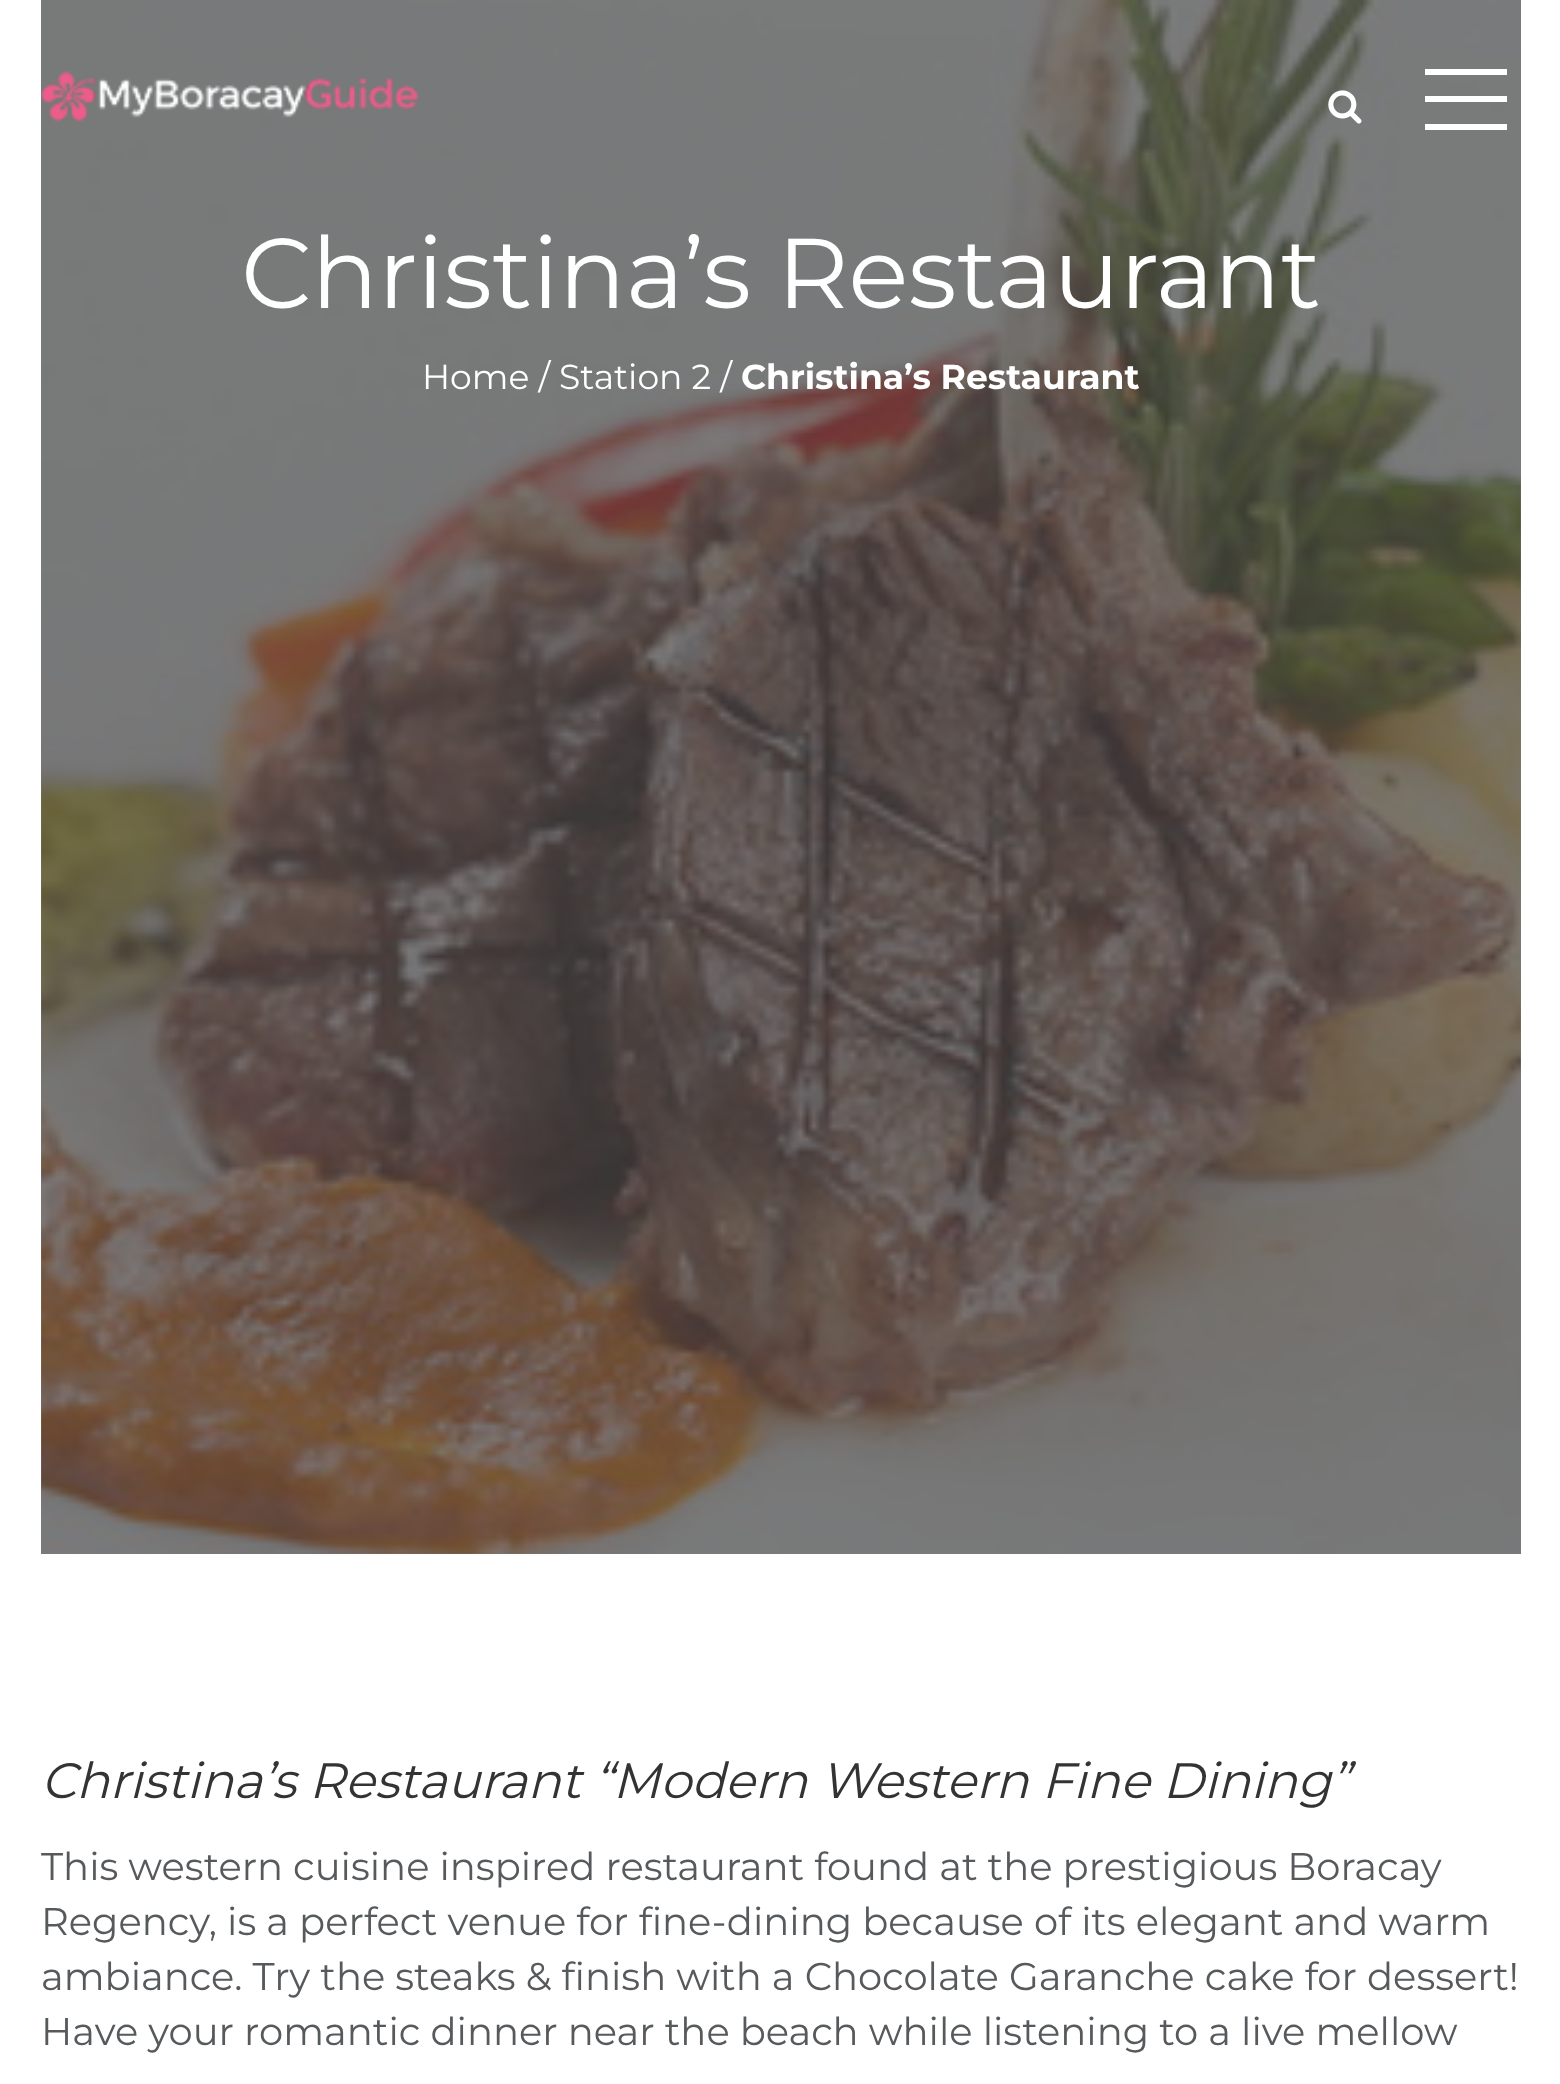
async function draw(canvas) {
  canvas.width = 1560
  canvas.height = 2084
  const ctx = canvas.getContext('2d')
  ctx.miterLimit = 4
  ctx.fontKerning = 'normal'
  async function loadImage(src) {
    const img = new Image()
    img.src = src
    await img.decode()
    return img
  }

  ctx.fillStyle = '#fff'
  ctx.fillRect(0, 0, 1560, 2084)
  ctx.fillStyle = '#7e7e7e'
  ctx.fillRect(41, 0, 1480, 1554)
  ctx.drawImage(await loadImage('image2.png'), 41, 0, 1480, 1554)
  ctx.drawImage(await loadImage('image0.png'), 41, 71, 378, 51)
  ctx.drawImage(await loadImage('image1.png'), 1328, 90, 34, 34)
  ctx.fillStyle = '#fff'
  ctx.fillRect(1425, 96, 82, 6)
  ctx.fillRect(1425, 69, 82, 6)
  ctx.fillRect(1425, 124, 82, 6)
  ctx.font = '99px Montserrat'
  ctx.fillText('Christina’s Restaurant', 241, 308)
  ctx.font = '34.6px Montserrat'
  ctx.fillText('Home / Station 2 /', 422, 389)
  ctx.font = 'bold 34.6px Montserrat'
  ctx.fillText('Christina’s Restaurant', 741, 389)
  ctx.font = 'italic 49.5px Montserrat'
  ctx.fillStyle = '#333'
  ctx.fillText('Christina’s Restaurant “Modern Western Fine Dining”', 41, 1798)
  ctx.font = '38.5px Montserrat'
  ctx.fillStyle = '#565a5c'
  ctx.fillText('This western cuisine inspired restaurant found at the prestigious Boracay', 41, 1880)
  ctx.fillText('Regency, is a perfect venue for fine-dining because of its elegant and warm', 41, 1935)
  ctx.fillText('ambiance. Try the steaks & finish with a Chocolate Garanche cake for dessert!', 41, 1990)
  ctx.fillText('Have your romantic dinner near the beach while listening to a live mellow', 41, 2045)
}

draw(document.querySelector('canvas'))
